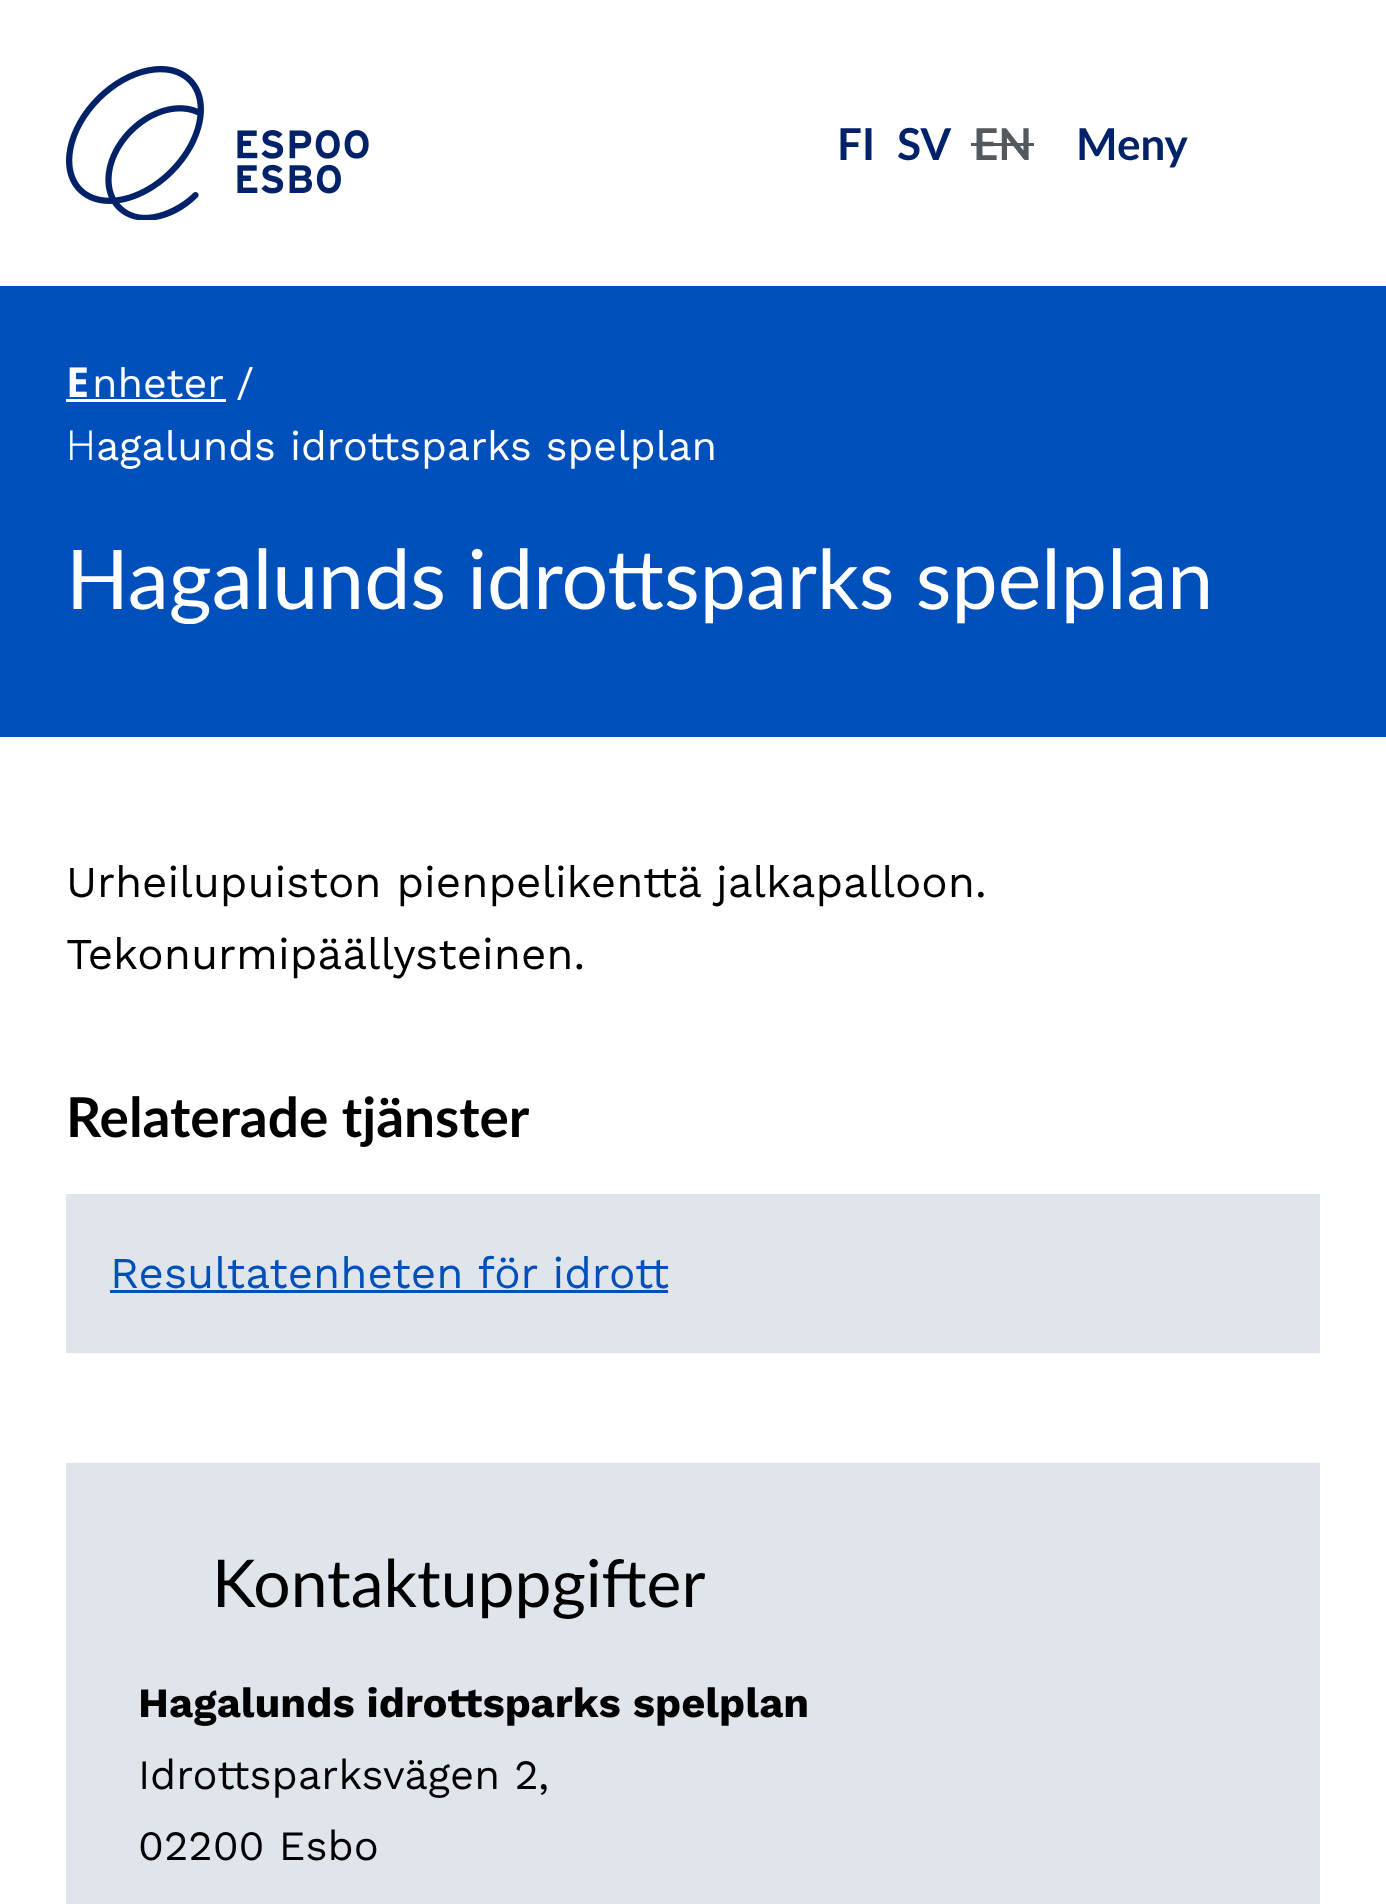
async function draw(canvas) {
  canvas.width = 1386
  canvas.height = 1904
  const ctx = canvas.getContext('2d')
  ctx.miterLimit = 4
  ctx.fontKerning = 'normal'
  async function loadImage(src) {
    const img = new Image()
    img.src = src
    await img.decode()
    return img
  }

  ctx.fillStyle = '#fff'
  ctx.fillRect(0, 0, 1386, 1904)
  ctx.drawImage(await loadImage('image0.png'), 66, 66, 303, 154)
  ctx.font = 'bold 44px Lato'
  ctx.fillStyle = '#012169'
  ctx.fillText('FI', 837, 160)
  ctx.fillText('SV', 897, 160)
  ctx.fillStyle = '#54595d'
  ctx.fillText('EN', 973, 160)
  ctx.fillRect(971, 143, 63, 3)
  ctx.fillStyle = '#012169'
  ctx.fillText('Meny', 1076, 160)
  ctx.fillStyle = '#0050bb'
  ctx.fillRect(0, 286, 1386, 451)
  ctx.font = 'bold 41.25px Noto Sans'
  ctx.fillStyle = '#fff'
  ctx.fillText('E', 66, 397)
  ctx.fillRect(66, 399, 160, 3)
  ctx.font = '41.25px Work Sans'
  ctx.fillText('nheter', 92, 397)
  ctx.fillText('/', 236, 397)
  ctx.font = '300 41.25px Noto Sans'
  ctx.fillText('H', 66, 460)
  ctx.font = '41.25px Work Sans'
  ctx.fillText('agalunds idrottsparks spelplan', 96, 460)
  ctx.font = '82.5px Lato'
  ctx.fillText('Hagalunds idrottsparks spelplan', 66, 609)
  ctx.font = '44px Work Sans'
  ctx.fillStyle = '#000'
  ctx.fillText('Urheilupuiston pienpelikenttä jalkapalloon.', 66, 897)
  ctx.fillText('Tekonurmipäällysteinen.', 66, 969)
  ctx.font = 'bold 55px Lato'
  ctx.fillText('Relaterade tjänster', 66, 1137)
  ctx.fillStyle = '#dfe5eb'
  ctx.fillRect(66, 1194, 1254, 159)
  ctx.font = '44px Work Sans'
  ctx.fillStyle = '#0050bb'
  ctx.fillText('Resultatenheten för idrott', 110, 1288)
  ctx.fillRect(110, 1290, 558, 3)
  ctx.fillStyle = '#dfe5eb'
  ctx.fillRect(66, 1463, 1254, 441)
  ctx.font = '66px Lato'
  ctx.fillStyle = '#000'
  ctx.fillText('Kontaktuppgifter', 212, 1607)
  ctx.font = 'bold 41.75px Work Sans'
  ctx.fillText('Hagalunds idrottsparks spelplan', 138, 1717)
  ctx.font = '41.75px Work Sans'
  ctx.fillText('Idrottsparksvägen 2', 138, 1789)
  ctx.fillText(',', 538, 1789)
  ctx.fillText('02200 Esbo', 138, 1860)
}

draw(document.querySelector('canvas'))
